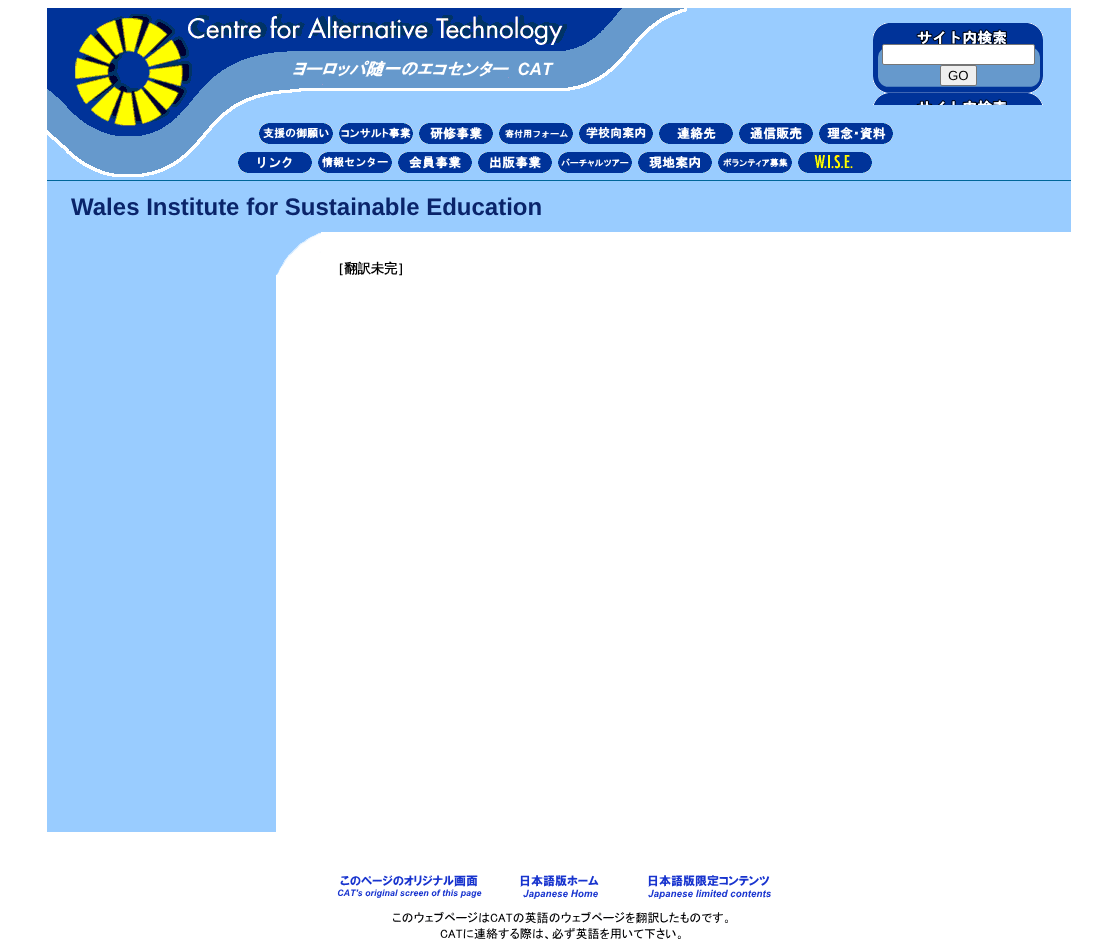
async function draw(canvas) {
  canvas.width = 1118
  canvas.height = 939
  const ctx = canvas.getContext('2d')
  ctx.miterLimit = 4
  ctx.fontKerning = 'normal'
  async function loadImage(src) {
    const img = new Image()
    img.src = src
    await img.decode()
    return img
  }

  ctx.fillStyle = '#fff'
  ctx.fillRect(0, 0, 1118, 939)
  ctx.fillStyle = '#9cf'
  ctx.fillRect(47, 8, 1024, 172)
  ctx.drawImage(await loadImage('image0.png'), 47, 8, 180, 169)
  ctx.drawImage(await loadImage('image1.png'), 227, 8, 460, 106)
  ctx.drawImage(await loadImage('image2.png'), 873, 23, 170, 82)
  ctx.fillStyle = '#fff'
  ctx.beginPath()
  ctx.roundRect(882.5, 44.5, 152, 20, 1.5)
  ctx.fill()
  ctx.strokeStyle = '#767676'
  ctx.stroke()
  ctx.fillStyle = '#efefef'
  ctx.beginPath()
  ctx.roundRect(940.5, 65.5, 36, 20, 1.5)
  ctx.fill()
  ctx.stroke()
  ctx.font = '13.25px Liberation Sans'
  ctx.fillStyle = '#000'
  ctx.fillText('GO', 948, 80)
  ctx.drawImage(await loadImage('image3.png'), 259, 123, 74, 21)
  ctx.drawImage(await loadImage('image4.png'), 339, 123, 74, 21)
  ctx.drawImage(await loadImage('image5.png'), 419, 123, 74, 21)
  ctx.drawImage(await loadImage('image6.png'), 499, 123, 74, 21)
  ctx.drawImage(await loadImage('image7.png'), 579, 123, 74, 21)
  ctx.drawImage(await loadImage('image8.png'), 659, 123, 74, 21)
  ctx.drawImage(await loadImage('image9.png'), 739, 123, 74, 21)
  ctx.drawImage(await loadImage('image10.png'), 819, 123, 74, 21)
  ctx.drawImage(await loadImage('image11.png'), 238, 152, 74, 21)
  ctx.drawImage(await loadImage('image12.png'), 318, 152, 74, 21)
  ctx.drawImage(await loadImage('image13.png'), 398, 152, 74, 21)
  ctx.drawImage(await loadImage('image14.png'), 478, 152, 74, 21)
  ctx.drawImage(await loadImage('image15.png'), 558, 152, 74, 21)
  ctx.drawImage(await loadImage('image16.png'), 638, 152, 74, 21)
  ctx.drawImage(await loadImage('image17.png'), 718, 152, 74, 21)
  ctx.drawImage(await loadImage('image18.png'), 798, 152, 74, 21)
  ctx.fillStyle = '#069'
  ctx.fillRect(47, 180, 1024, 1)
  ctx.fillStyle = '#9cf'
  ctx.fillRect(47, 181, 1024, 51)
  ctx.font = 'bold 24px Liberation Sans'
  ctx.fillStyle = '#0a246a'
  ctx.fillText('Wales Institute for Sustainable Education', 71, 215)
  ctx.fillStyle = '#9cf'
  ctx.fillRect(47, 232, 229, 600)
  ctx.drawImage(await loadImage('image19.png'), 276, 232, 45, 43)
  ctx.font = 'bold 13.25px WenQuanYi Zen Hei'
  ctx.fillStyle = '#000'
  ctx.fillText('［翻訳未完］', 331, 273)
  ctx.drawImage(await loadImage('image20.png'), 337, 875, 145, 23)
  ctx.drawImage(await loadImage('image21.png'), 520, 875, 79, 24)
  ctx.drawImage(await loadImage('image22.png'), 648, 875, 123, 24)
  ctx.drawImage(await loadImage('image23.png'), 393, 911, 335, 28)
}

draw(document.querySelector('canvas'))
